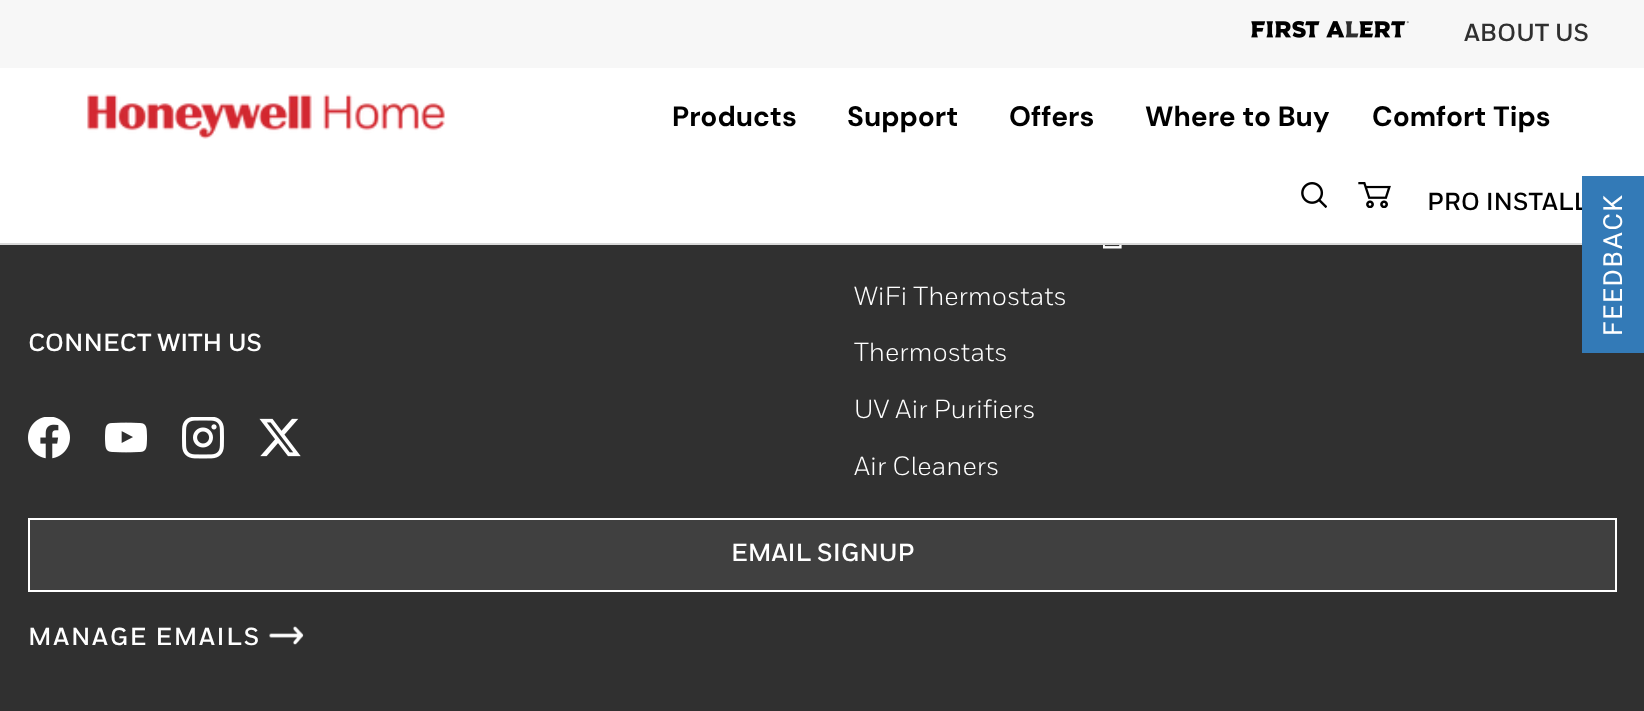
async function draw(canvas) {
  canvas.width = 1644
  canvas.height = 711
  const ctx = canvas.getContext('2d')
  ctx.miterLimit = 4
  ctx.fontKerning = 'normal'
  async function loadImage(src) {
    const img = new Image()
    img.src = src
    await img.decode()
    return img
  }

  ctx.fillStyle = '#303030'
  ctx.fillRect(0, 0, 1644, 711)
  ctx.fillStyle = '#f7f7f7'
  ctx.fillRect(0, 0, 1644, 68)
  ctx.drawImage(await loadImage('image0.png'), 1251, 21, 158, 17)
  ctx.font = 'bold 24.5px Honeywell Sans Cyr'
  ctx.fillStyle = '#303030'
  ctx.fillText('ABOUT US', 1464, 41)
  ctx.fillStyle = '#fff'
  ctx.fillRect(0, 68, 1644, 175)
  ctx.fillStyle = '#d9d9d9'
  ctx.fillRect(0, 243, 1582, 2)
  ctx.drawImage(await loadImage('image1.png'), 87, 94, 358, 45)
  ctx.font = 'bold 28px DM Sans'
  ctx.fillStyle = '#000'
  ctx.fillText('Products', 672, 126)
  ctx.fillText('Support', 847, 126)
  ctx.fillText('Offers', 1009, 126)
  ctx.fillText('Where to Buy', 1145, 126)
  ctx.fillText('Comfort Tips', 1372, 126)
  ctx.drawImage(await loadImage('image2.png'), 1301, 182, 26, 26)
  ctx.drawImage(await loadImage('image3.png'), 1358, 182, 33, 26)
  ctx.font = 'bold 24.5px Honeywell Sans Cyr'
  ctx.fillText('PRO INSTALL', 1427, 210)
  ctx.fillStyle = '#337ab7'
  ctx.fillRect(1582, 176, 62, 177)
  ctx.letterSpacing = '1.75px'
  ctx.font = '26.25px Roboto'
  ctx.fillStyle = '#fff'
  ctx.save()
  ctx.translate(1622, 336)
  ctx.rotate(-90 * Math.PI / 180)
  ctx.fillText('FEEDBACK', 0, 0)
  ctx.restore()
  ctx.letterSpacing = '0px'
  ctx.font = 'bold 24.5px Honeywell Sans Cyr'
  ctx.fillText('CONNECT WITH US', 28, 351)
  ctx.drawImage(await loadImage('image4.png'), 28, 417, 42, 42)
  ctx.drawImage(await loadImage('image5.png'), 105, 422, 42, 31)
  ctx.drawImage(await loadImage('image6.png'), 182, 417, 42, 42)
  ctx.drawImage(await loadImage('image7.png'), 259, 418, 42, 39)
  ctx.fillStyle = '#404040'
  ctx.beginPath()
  ctx.rect(29, 519, 1587, 72)
  ctx.fill()
  ctx.strokeStyle = '#fff'
  ctx.lineWidth = 2
  ctx.stroke()
  ctx.font = 'bold 24.75px Honeywell Sans Cyr'
  ctx.fillStyle = '#fff'
  ctx.fillText('EMAIL SIGNUP', 731, 561)
  ctx.letterSpacing = '1.75px'
  ctx.font = 'bold 24.5px Honeywell Sans Cyr'
  ctx.fillText('MANAGE EMAILS', 28, 645)
  ctx.drawImage(await loadImage('image8.png'), 269, 626, 35, 19)
  ctx.drawImage(await loadImage('image9.png'), 1103, 245, 19, 4)
  ctx.letterSpacing = '0px'
  ctx.font = '26.25px Honeywell Sans Cyr'
  ctx.fillText('WiFi Thermostats', 854, 305)
  ctx.fillText('Thermostats', 854, 361)
  ctx.fillText('UV Air Purifiers', 854, 418)
  ctx.fillText('Air Cleaners', 854, 475)
}

draw(document.querySelector('canvas'))
